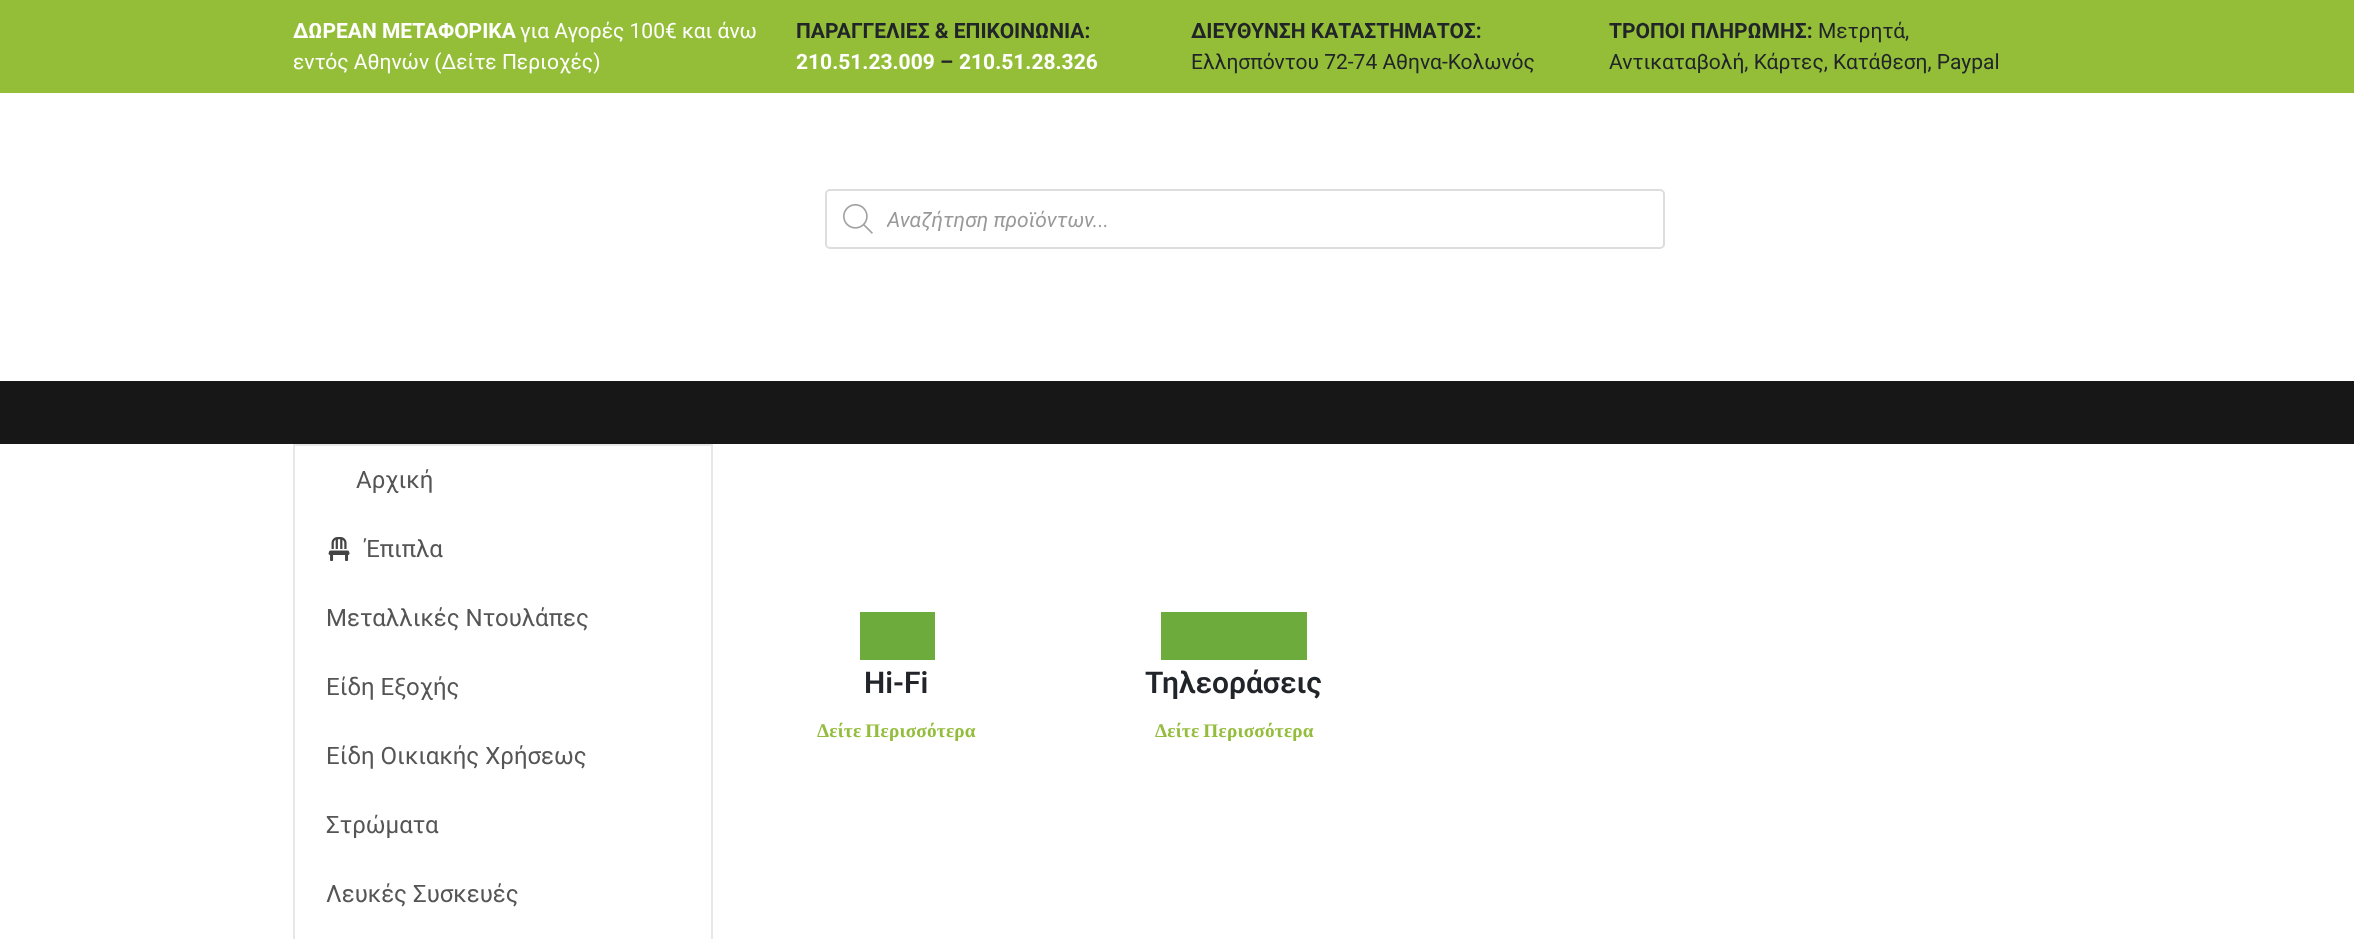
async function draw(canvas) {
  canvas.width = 2354
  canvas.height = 939
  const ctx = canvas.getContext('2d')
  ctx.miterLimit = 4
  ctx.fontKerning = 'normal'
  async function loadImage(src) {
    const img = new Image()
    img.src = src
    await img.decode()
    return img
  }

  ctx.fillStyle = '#fff'
  ctx.fillRect(0, 0, 2354, 939)
  ctx.fillStyle = '#94be38'
  ctx.fillRect(0, 0, 2354, 93)
  ctx.font = 'bold 21px Roboto'
  ctx.fillStyle = '#fff'
  ctx.fillText('ΔΩΡΕΑΝ ΜΕΤΑΦΟΡΙΚΑ', 293, 38)
  ctx.font = '21px Roboto'
  ctx.fillText('για Αγορές 100€ και άνω', 520, 38)
  ctx.fillText('εντός Αθηνών (Δείτε Περιοχές)', 293, 69)
  ctx.font = 'bold 21px Roboto'
  ctx.fillStyle = '#212529'
  ctx.fillText('ΠΑΡΑΓΓΕΛΙΕΣ & ΕΠΙΚΟΙΝΩΝΙΑ:', 796, 38)
  ctx.fillStyle = '#fff'
  ctx.fillText('210.51.23.009', 796, 69)
  ctx.fillStyle = '#212529'
  ctx.fillText('–', 940, 69)
  ctx.fillStyle = '#fff'
  ctx.fillText('210.51.28.326', 959, 69)
  ctx.fillStyle = '#212529'
  ctx.fillText('ΔΙΕΥΘΥΝΣΗ ΚΑΤΑΣΤΗΜΑΤΟΣ:', 1191, 38)
  ctx.font = '21px Roboto'
  ctx.fillText('Ελλησπόντου 72-74 Αθηνα-Κολωνός', 1191, 69)
  ctx.font = 'bold 21px Roboto'
  ctx.fillText('ΤΡΟΠΟΙ ΠΛΗΡΩΜΗΣ:', 1609, 38)
  ctx.font = '21px Roboto'
  ctx.fillText('Μετρητά,', 1818, 38)
  ctx.fillText('Αντικαταβολή, Κάρτες, Κατάθεση, Paypal', 1609, 69)
  ctx.beginPath()
  ctx.roundRect(826, 190, 838, 58, 4)
  ctx.strokeStyle = '#ddd'
  ctx.lineWidth = 2
  ctx.stroke()
  ctx.drawImage(await loadImage('image0.png'), 843, 204, 30, 30)
  ctx.save()
  ctx.beginPath()
  ctx.rect(887, 207, 754, 24)
  ctx.clip()
  ctx.font = 'italic 21px Roboto'
  ctx.fillStyle = '#999'
  ctx.fillText('Αναζήτηση προϊόντων...', 887, 227)
  ctx.restore()
  ctx.fillStyle = '#171717'
  ctx.fillRect(0, 381, 2354, 63)
  ctx.strokeStyle = '#e7e7e7'
  ctx.strokeRect(294, 445, 418, 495)
  ctx.font = '24px Roboto'
  ctx.fillStyle = '#555'
  ctx.fillText('Αρχική', 356, 488)
  ctx.drawImage(await loadImage('image1.png'), 328, 537, 22, 24)
  ctx.fillText('Έπιπλα', 365, 557)
  ctx.fillText('Μεταλλικές Ντουλάπες', 326, 626)
  ctx.fillText('Είδη Εξοχής', 326, 695)
  ctx.fillText('Είδη Οικιακής Χρήσεως', 326, 764)
  ctx.fillText('Στρώματα', 326, 833)
  ctx.fillText('Λευκές Συσκευές', 326, 902)
  ctx.fillStyle = '#6dab3c'
  ctx.fillRect(860, 612, 75, 48)
  ctx.font = '600 30px Roboto'
  ctx.fillStyle = '#212529'
  ctx.fillText('Hi-Fi', 864, 693)
  ctx.letterSpacing = '0.2px'
  ctx.wordSpacing = '-1px'
  ctx.font = 'bold 19.25px Liberation Serif'
  ctx.fillStyle = '#94bd3d'
  ctx.fillText('Δείτε Περισσότερα', 817, 737)
  ctx.fillStyle = '#6dab3c'
  ctx.fillRect(1161, 612, 146, 48)
  ctx.letterSpacing = '0px'
  ctx.wordSpacing = '0px'
  ctx.font = '600 30px Roboto'
  ctx.fillStyle = '#212529'
  ctx.fillText('Τηλεοράσεις', 1145, 693)
  ctx.letterSpacing = '0.2px'
  ctx.wordSpacing = '-1px'
  ctx.font = 'bold 19.25px Liberation Serif'
  ctx.fillStyle = '#94bd3d'
  ctx.fillText('Δείτε Περισσότερα', 1155, 737)
}

draw(document.querySelector('canvas'))
